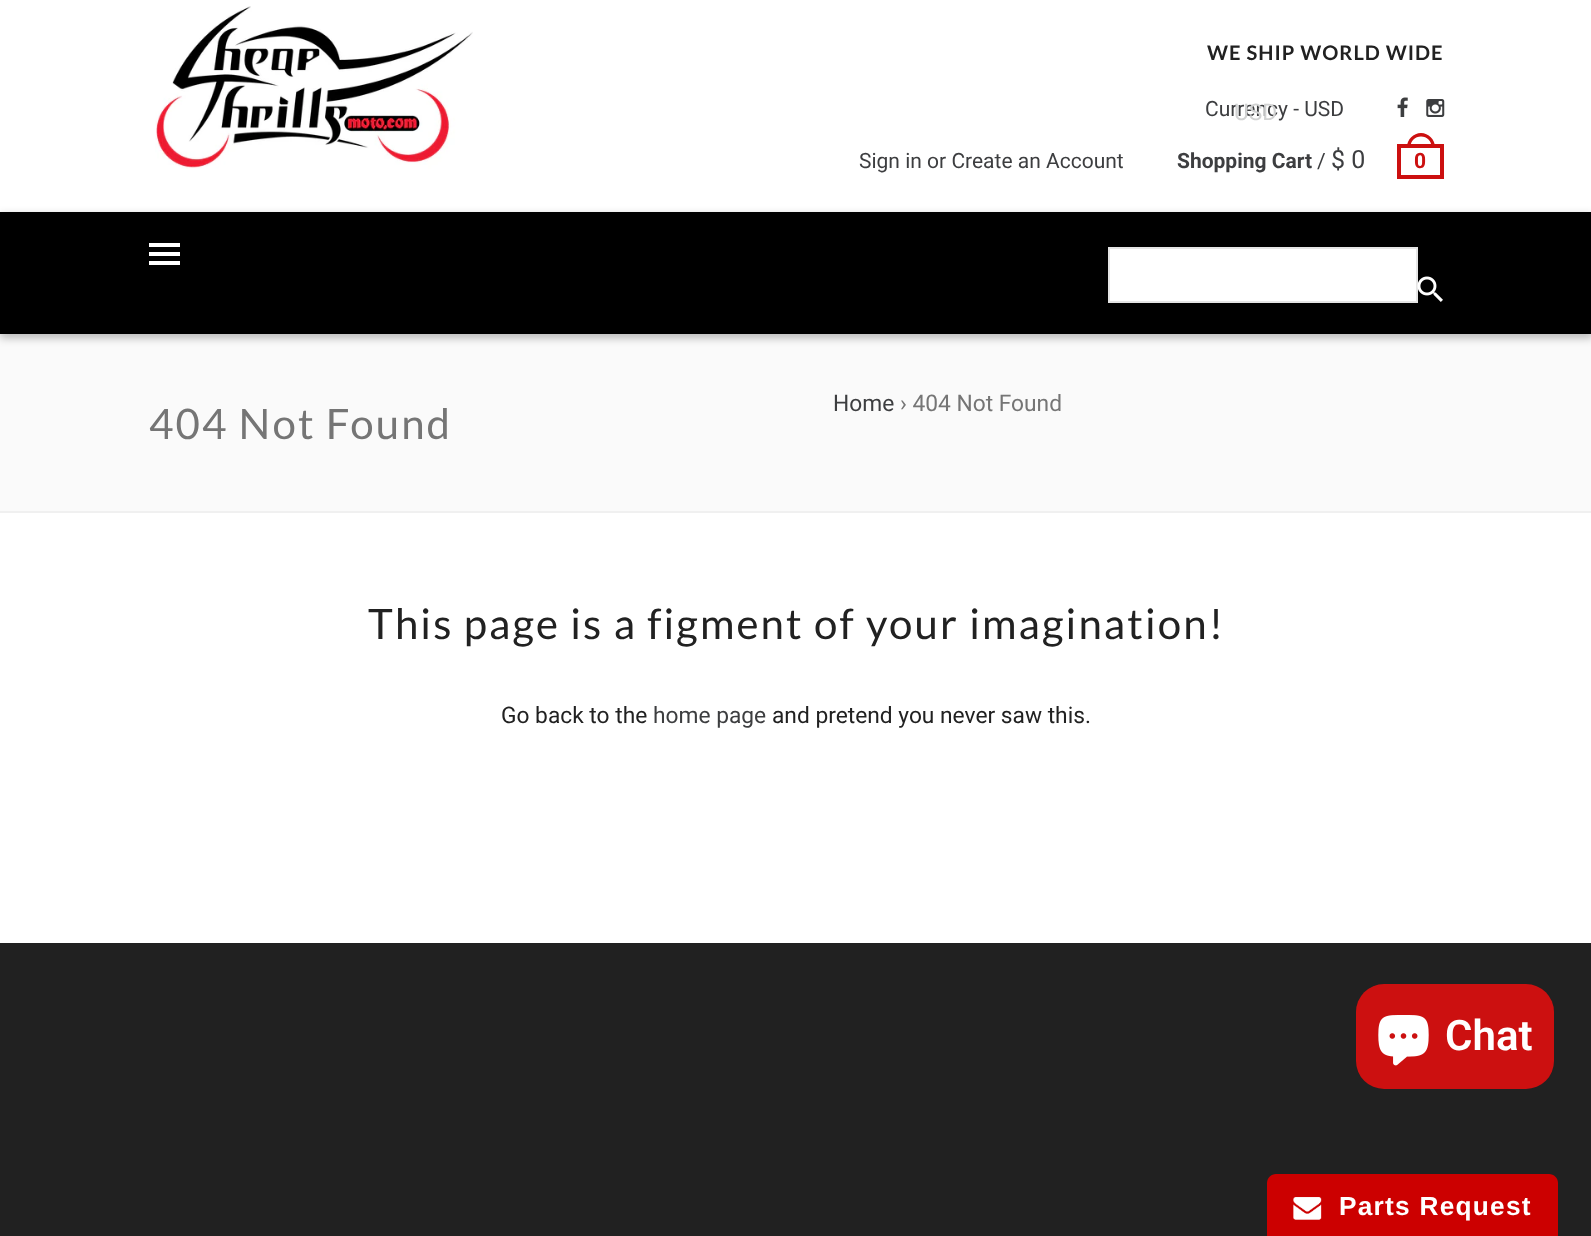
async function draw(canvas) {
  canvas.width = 1591
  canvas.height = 1236
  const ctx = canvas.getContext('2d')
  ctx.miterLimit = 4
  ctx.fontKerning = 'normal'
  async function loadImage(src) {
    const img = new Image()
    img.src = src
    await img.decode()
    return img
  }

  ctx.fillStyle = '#fff'
  ctx.fillRect(0, 0, 1591, 1236)
  ctx.letterSpacing = '1px'
  ctx.font = 'bold 20.1px Lato'
  ctx.fillStyle = '#212121'
  ctx.fillText('WE SHIP WORLD WIDE', 1207, 60)
  ctx.drawImage(await loadImage('image0.png'), 155, 6, 318, 163)
  ctx.letterSpacing = '0px'
  ctx.font = '21px Roboto'
  ctx.fillStyle = '#3d3e40'
  ctx.fillText('Currency - USD', 1205, 116)
  ctx.font = '22.75px Roboto'
  ctx.fillStyle = '#d1d2d2'
  ctx.fillText('USD', 1234, 120)
  ctx.drawImage(await loadImage('image1.png'), 1397, 97, 11, 20)
  ctx.drawImage(await loadImage('image2.png'), 1426, 99, 19, 18)
  ctx.font = '21px Roboto'
  ctx.fillStyle = '#3d3e40'
  ctx.fillText('Sign in or Create an Account', 859, 168)
  ctx.font = 'bold 21px Roboto'
  ctx.fillText('Shopping Cart', 1177, 168)
  ctx.font = '21px Roboto'
  ctx.fillText('/', 1317, 168)
  ctx.font = '25px Roboto'
  ctx.fillText('$ 0', 1331, 168)
  ctx.fillStyle = '#cc1010'
  ctx.beginPath()
  ctx.moveTo(1421, 133)
  ctx.bezierCurveTo(1428.5, 133, 1435, 139.5, 1435, 147)
  ctx.lineTo(1407, 147)
  ctx.bezierCurveTo(1407, 139.5, 1413.5, 133, 1421, 133)
  ctx.closePath()
  ctx.moveTo(1421, 136.5)
  ctx.bezierCurveTo(1427, 136.5, 1431.5, 141, 1431.5, 147)
  ctx.lineTo(1410.5, 147)
  ctx.bezierCurveTo(1410.5, 141, 1415, 136.5, 1421, 136.5)
  ctx.closePath()
  ctx.fill('evenodd')
  ctx.strokeStyle = '#cc1010'
  ctx.lineWidth = 4
  ctx.strokeRect(1399, 146, 43, 31)
  ctx.font = 'bold 21px Roboto'
  ctx.fillText('0', 1414, 168)
  ctx.fillStyle = '#fafafa'
  ctx.fillRect(0, 334, 1591, 177)
  ctx.fillStyle = '#00000042'
  ctx.filter = 'blur(4.5px)'
  ctx.beginPath()
  ctx.rect(0, 215, 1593, 123)
  ctx.fill()
  ctx.filter = 'none'
  ctx.fillStyle = '#000'
  ctx.fillRect(0, 212, 1591, 122)
  ctx.fillStyle = '#fff'
  ctx.fillRect(149, 243, 31, 4)
  ctx.fillRect(149, 252, 31, 4)
  ctx.fillRect(149, 261, 31, 4)
  ctx.beginPath()
  ctx.rect(1109, 248, 308, 54)
  ctx.fill()
  ctx.strokeStyle = '#e5e5e5'
  ctx.lineWidth = 2
  ctx.stroke()
  ctx.drawImage(await loadImage('image3.png'), 1417, 276, 26, 26)
  ctx.save()
  ctx.beginPath()
  ctx.rect(0, 334, 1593, 179)
  ctx.clip()
  ctx.fillStyle = '#f0f0f0'
  ctx.beginPath()
  ctx.moveTo(-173, 161)
  ctx.lineTo(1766, 161)
  ctx.lineTo(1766, 686)
  ctx.lineTo(-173, 686)
  ctx.closePath()
  ctx.moveTo(0, 329)
  ctx.lineTo(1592, 329)
  ctx.bezierCurveTo(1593, 329, 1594, 330, 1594, 331)
  ctx.lineTo(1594, 509)
  ctx.bezierCurveTo(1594, 510, 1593, 511, 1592, 511)
  ctx.lineTo(0, 511)
  ctx.bezierCurveTo(-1, 511, -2, 510, -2, 509)
  ctx.lineTo(-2, 331)
  ctx.bezierCurveTo(-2, 330, -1, 329, 0, 329)
  ctx.closePath()
  ctx.fill('evenodd')
  ctx.restore()
  ctx.font = '22.75px Roboto'
  ctx.fillStyle = '#3d3e40'
  ctx.fillText('Home', 833, 411)
  ctx.fillStyle = '#757575'
  ctx.fillText('› 404 Not Found', 900, 411)
  ctx.letterSpacing = '2.1px'
  ctx.font = '42px Lato'
  ctx.fillText('404 Not Found', 149, 439)
  ctx.fillStyle = '#212121'
  ctx.fillText('This page is a figment of your imagination!', 368, 639)
  ctx.letterSpacing = '0px'
  ctx.font = '22.75px Roboto'
  ctx.fillText('Go back to the', 501, 723)
  ctx.fillStyle = '#3d3e40'
  ctx.fillText('home page', 653, 723)
  ctx.fillStyle = '#212121'
  ctx.fillText('and pretend you never saw this.', 772, 723)
  ctx.fillRect(0, 943, 1591, 293)
  ctx.fillStyle = '#cc1010'
  ctx.beginPath()
  ctx.roundRect(1356, 984, 198, 105, 28)
  ctx.fill()
  ctx.drawImage(await loadImage('image4.png'), 1378, 1015, 51, 51)
  ctx.font = '600 42px Roboto'
  ctx.fillStyle = '#fff'
  ctx.fillText('Chat', 1445, 1050)
  ctx.fillStyle = '#c00'
  ctx.beginPath()
  ctx.moveTo(1276, 1174)
  ctx.lineTo(1549, 1174)
  ctx.bezierCurveTo(1554, 1174, 1558, 1178, 1558, 1183)
  ctx.lineTo(1558, 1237)
  ctx.lineTo(1267, 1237)
  ctx.lineTo(1267, 1183)
  ctx.bezierCurveTo(1267, 1178, 1271, 1174, 1276, 1174)
  ctx.closePath()
  ctx.fill()
  ctx.drawImage(await loadImage('image5.png'), 1293, 1197, 29, 23)
  ctx.letterSpacing = '1.25px'
  ctx.font = 'bold 26.25px Liberation Sans'
  ctx.fillStyle = '#fff'
  ctx.fillText('Parts Request', 1339, 1215)
}

draw(document.querySelector('canvas'))
